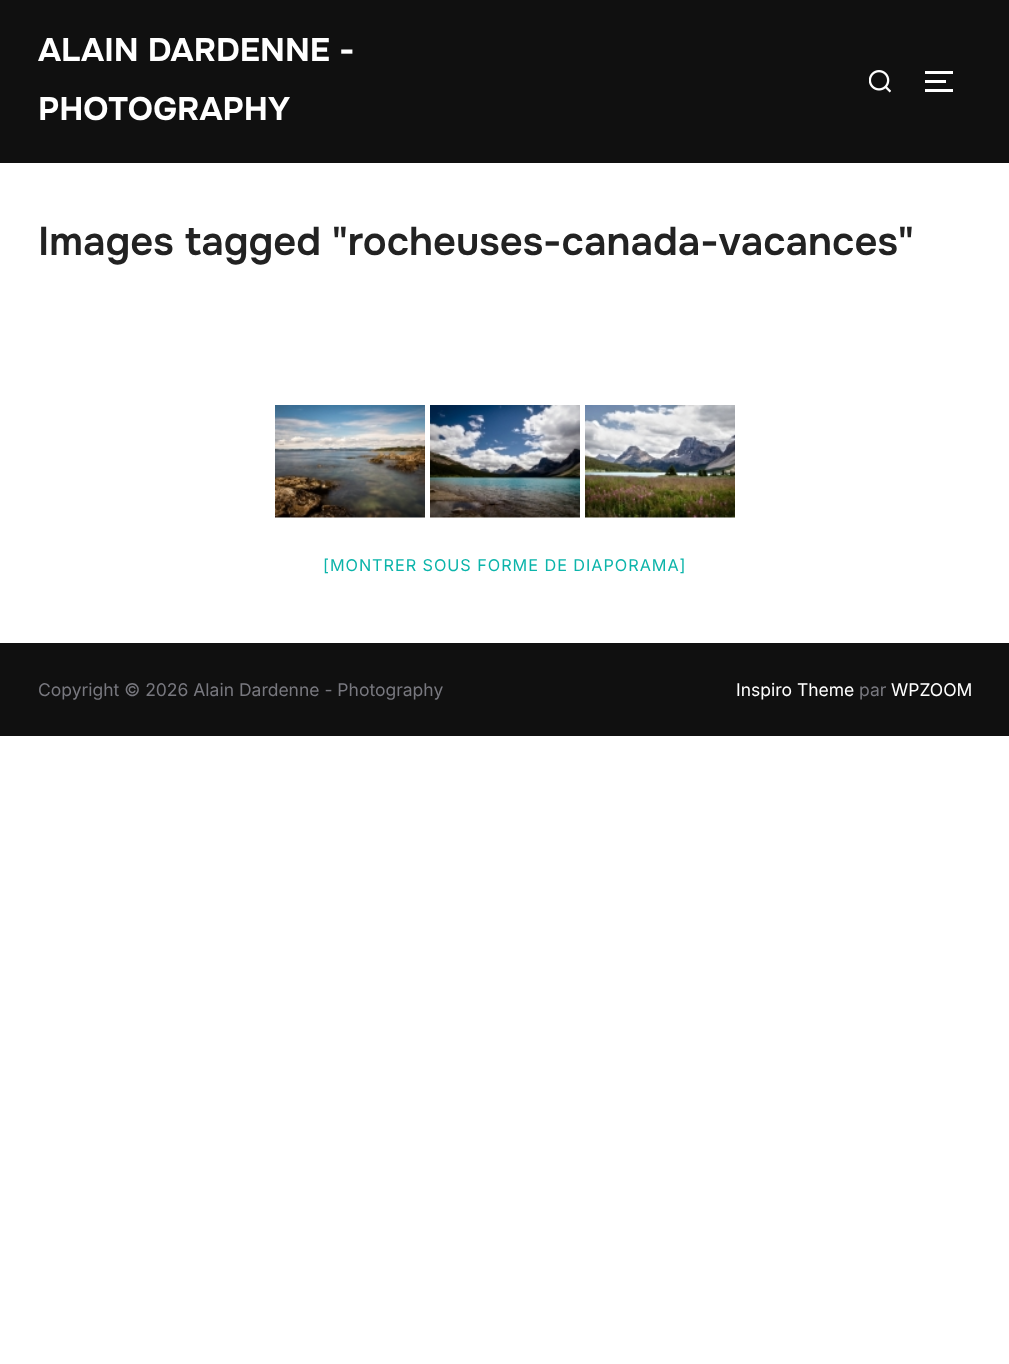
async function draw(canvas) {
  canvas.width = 1009
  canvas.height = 1364
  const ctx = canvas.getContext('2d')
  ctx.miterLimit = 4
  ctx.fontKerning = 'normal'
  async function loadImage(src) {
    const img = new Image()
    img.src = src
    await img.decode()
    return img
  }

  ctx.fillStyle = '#fff'
  ctx.fillRect(0, 0, 1009, 1364)
  ctx.fillStyle = '#101010'
  ctx.fillRect(0, 0, 1009, 163)
  ctx.font = 'bold 32.5px Onest'
  ctx.fillStyle = '#fff'
  ctx.fillText('ALAIN DARDENNE -', 38, 61)
  ctx.fillText('PHOTOGRAPHY', 38, 120)
  ctx.drawImage(await loadImage('image0.png'), 869, 70, 22, 23)
  ctx.fillRect(925, 71, 28, 3)
  ctx.fillRect(925, 80, 21, 3)
  ctx.fillRect(925, 89, 28, 3)
  ctx.font = '600 40px Onest'
  ctx.fillStyle = '#222'
  ctx.fillText('Images tagged "rocheuses-canada-vacances"', 38, 255)
  ctx.drawImage(await loadImage('image1.png'), 275, 405, 150, 113)
  ctx.drawImage(await loadImage('image2.png'), 430, 405, 150, 113)
  ctx.drawImage(await loadImage('image3.png'), 585, 405, 150, 113)
  ctx.letterSpacing = '0.95px'
  ctx.font = '16.25px Inter'
  ctx.fillStyle = '#0bb4aa'
  ctx.fillText('[MONTRER SOUS FORME DE DIAPORAMA]', 323, 571)
  ctx.fillStyle = '#101010'
  ctx.fillRect(0, 643, 1009, 93)
  ctx.letterSpacing = '0px'
  ctx.font = '17.5px Inter'
  ctx.fillStyle = '#78787f'
  ctx.fillText('Copyright © 2026 Alain Dardenne - Photography', 38, 696)
  ctx.fillStyle = '#fff'
  ctx.fillText('Inspiro Theme', 736, 696)
  ctx.fillStyle = '#78787f'
  ctx.fillText('par', 859, 696)
  ctx.fillStyle = '#fff'
  ctx.fillText('WPZOOM', 891, 696)
}

draw(document.querySelector('canvas'))
